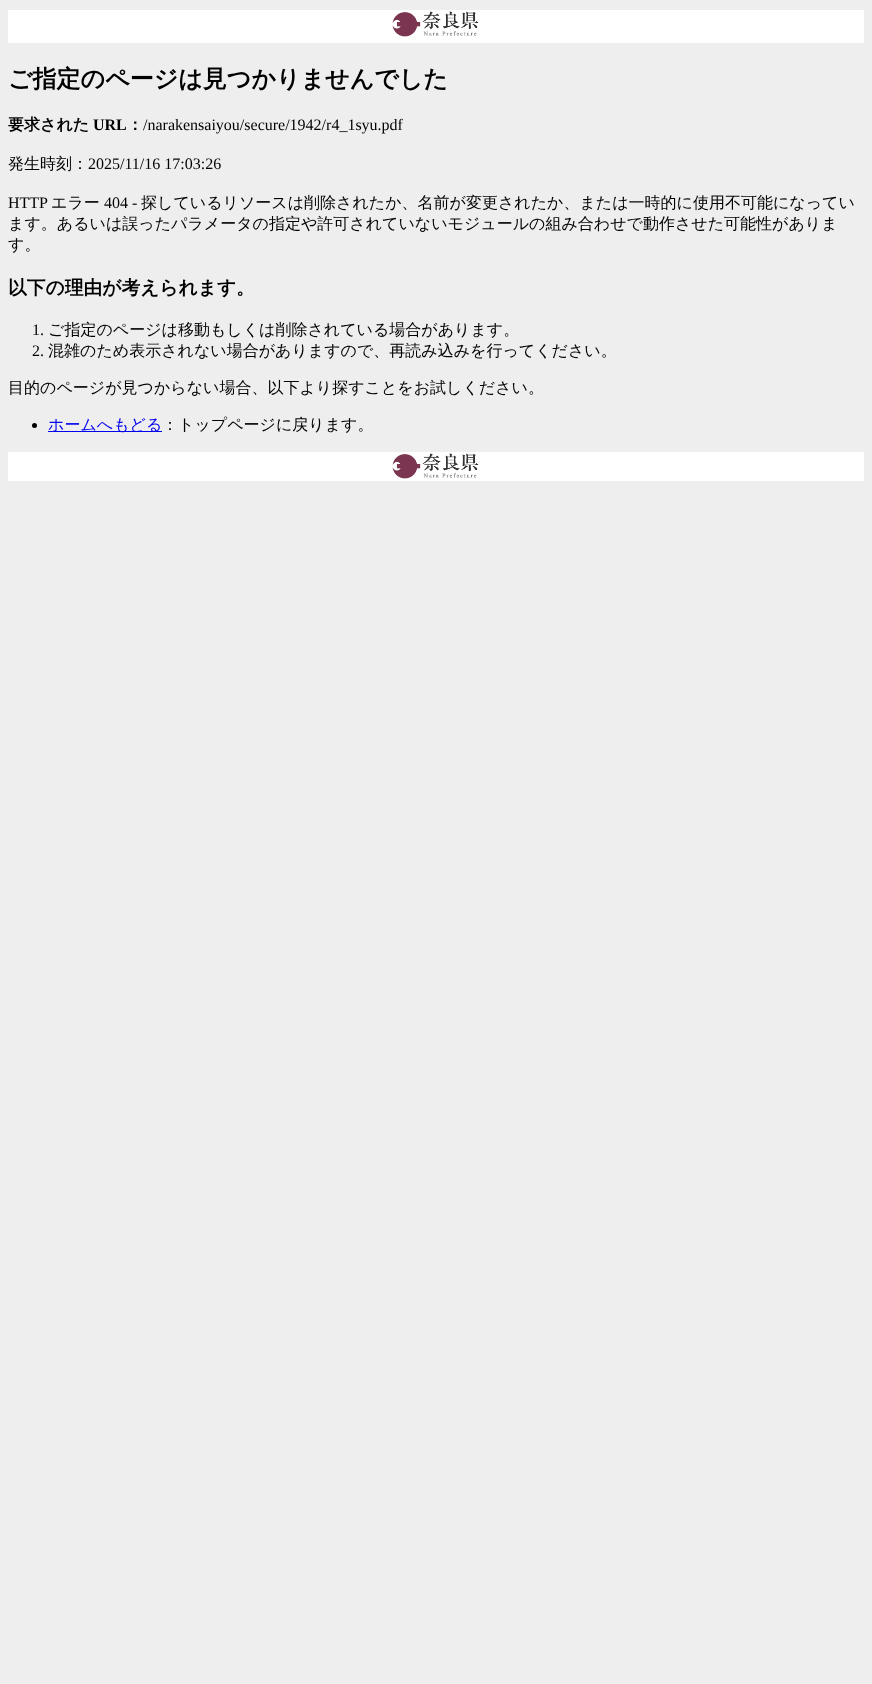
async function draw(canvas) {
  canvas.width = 872
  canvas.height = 1684
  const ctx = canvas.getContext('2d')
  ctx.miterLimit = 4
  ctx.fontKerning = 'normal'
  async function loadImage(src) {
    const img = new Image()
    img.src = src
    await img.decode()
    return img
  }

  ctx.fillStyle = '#eee'
  ctx.fillRect(0, 0, 872, 1684)
  ctx.fillStyle = '#fff'
  ctx.fillRect(8, 10, 856, 33)
  ctx.drawImage(await loadImage('image0.png'), 392, 11, 87, 26)
  ctx.font = 'bold 24px WenQuanYi Zen Hei'
  ctx.fillStyle = '#000'
  ctx.fillText('ご指定のページは見つかりませんでした', 8, 87)
  ctx.font = 'bold 16px WenQuanYi Zen Hei'
  ctx.fillText('要求された', 8, 130)
  ctx.font = 'bold 16px Liberation Serif'
  ctx.fillText('URL', 93, 130)
  ctx.font = 'bold 16px WenQuanYi Zen Hei'
  ctx.fillText('：', 127, 130)
  ctx.font = '16px Liberation Serif'
  ctx.fillText('/narakensaiyou/secure/1942/r4_1syu.pdf', 143, 130)
  ctx.font = '500 16px WenQuanYi Zen Hei'
  ctx.fillText('発生時刻：', 8, 169)
  ctx.font = '16px Liberation Serif'
  ctx.fillText('2025/11/16 17:03:26', 88, 169)
  ctx.fillText('HTTP', 8, 208)
  ctx.font = '500 16px WenQuanYi Zen Hei'
  ctx.fillText('エラー', 51, 208)
  ctx.font = '16px Liberation Serif'
  ctx.fillText('404 -', 104, 208)
  ctx.font = '500 16px WenQuanYi Zen Hei'
  ctx.fillText('探しているリソースは削除されたか、名前が変更されたか、または一時的に使用不可能になってい', 141, 208)
  ctx.fillText('ます。あるいは誤ったパラメータの指定や許可されていないモジュールの組み合わせで動作させた可能性がありま', 8, 229)
  ctx.fillText('す。', 8, 250)
  ctx.font = 'bold 18.75px WenQuanYi Zen Hei'
  ctx.fillText('以下の理由が考えられます。', 8, 294)
  ctx.font = '16px Liberation Serif'
  ctx.fillText('1.', 32, 335)
  ctx.font = '500 16px WenQuanYi Zen Hei'
  ctx.fillText('ご指定のページは移動もしくは削除されている場合があります。', 48, 335)
  ctx.font = '16px Liberation Serif'
  ctx.fillText('2.', 32, 356)
  ctx.font = '500 16px WenQuanYi Zen Hei'
  ctx.fillText('混雑のため表示されない場合がありますので、再読み込みを行ってください。', 48, 356)
  ctx.fillText('目的のページが見つからない場合、以下より探すことをお試しください。', 8, 393)
  ctx.beginPath()
  ctx.arc(34.5, 425.5, 2.5, 0, 2 * Math.PI)
  ctx.fill()
  ctx.fillStyle = '#00e'
  ctx.fillRect(48, 431, 114, 1)
  ctx.fillText('ホームへもどる', 48, 430)
  ctx.fillStyle = '#000'
  ctx.fillText('：トップページに戻ります。', 162, 430)
  ctx.fillStyle = '#fff'
  ctx.fillRect(8, 452, 856, 29)
  ctx.drawImage(await loadImage('image1.png'), 392, 453, 87, 26)
}

draw(document.querySelector('canvas'))
